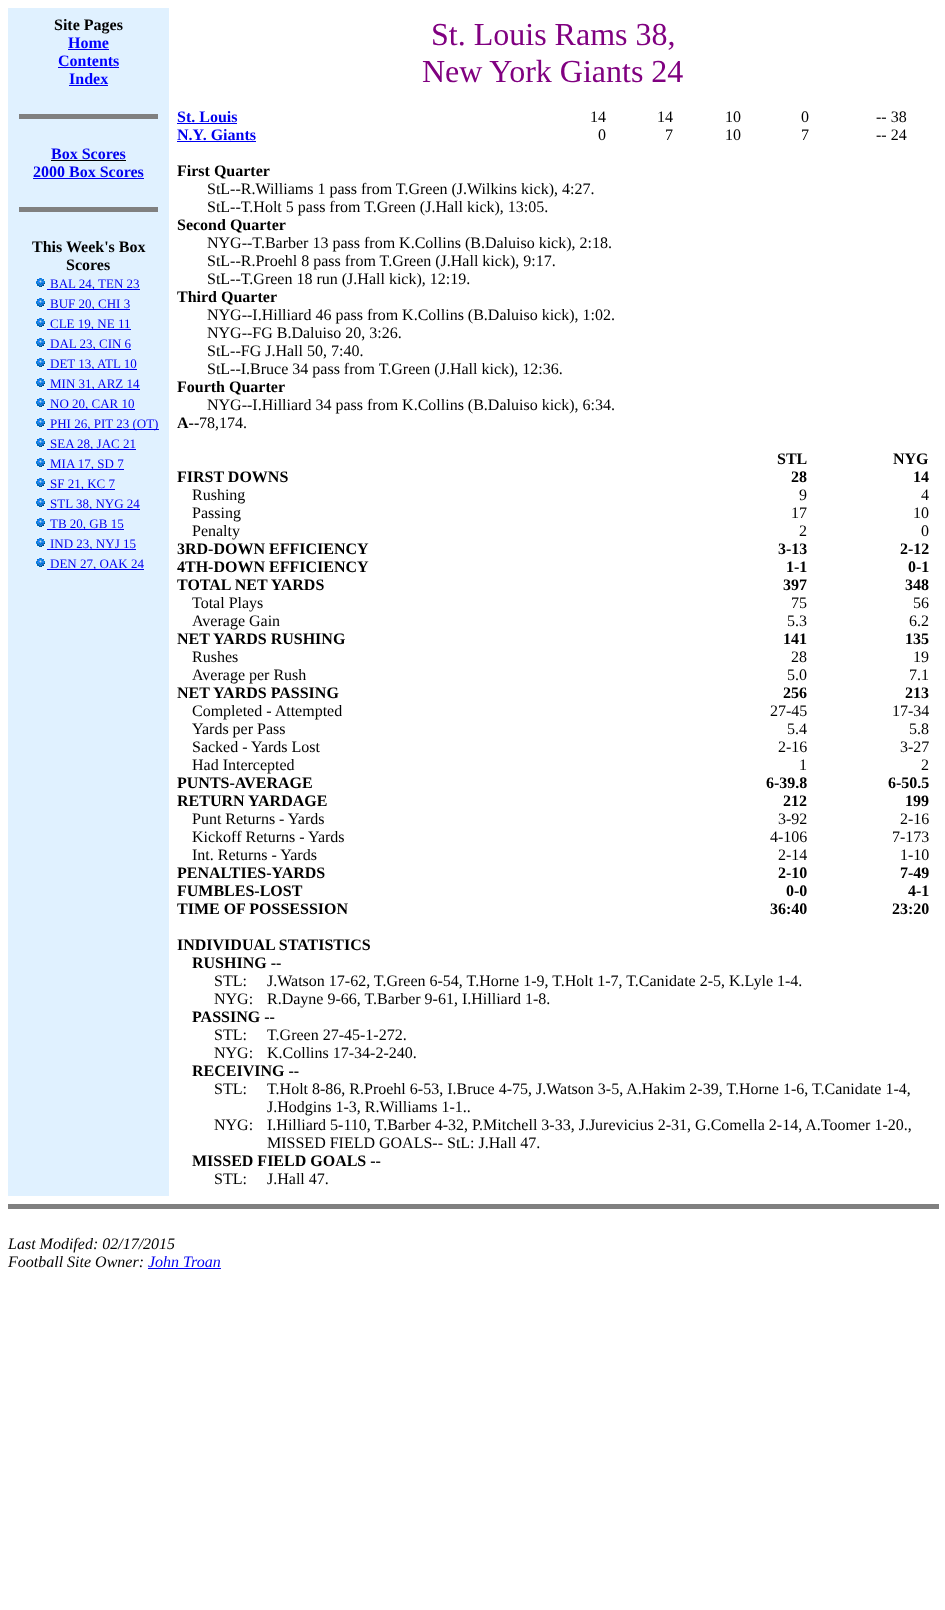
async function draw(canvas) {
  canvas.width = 945
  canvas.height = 1610
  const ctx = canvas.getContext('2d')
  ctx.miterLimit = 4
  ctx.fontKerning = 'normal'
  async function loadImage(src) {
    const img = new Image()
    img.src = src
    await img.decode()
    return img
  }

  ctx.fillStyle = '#fff'
  ctx.fillRect(0, 0, 945, 1610)
  ctx.fillStyle = '#e0f1ff'
  ctx.fillRect(8, 8, 161, 1188)
  ctx.font = 'bold 16px Liberation Serif'
  ctx.fillStyle = '#000'
  ctx.fillText('Site Pages', 54, 30)
  ctx.fillStyle = '#00f'
  ctx.fillText('Home', 68, 48)
  ctx.fillStyle = '#00e'
  ctx.fillRect(68, 49, 41, 1)
  ctx.fillStyle = '#00f'
  ctx.fillText('Contents', 58, 66)
  ctx.fillStyle = '#00e'
  ctx.fillRect(58, 67, 61, 1)
  ctx.fillStyle = '#00f'
  ctx.fillText('Index', 69, 84)
  ctx.fillStyle = '#00e'
  ctx.fillRect(69, 85, 39, 1)
  ctx.fillStyle = '#808080'
  ctx.fillRect(19, 114, 139, 5)
  ctx.fillStyle = '#00e'
  ctx.fillText('Box Scores', 51, 159)
  ctx.fillStyle = '#000'
  ctx.fillRect(51, 160, 75, 1)
  ctx.fillStyle = '#00e'
  ctx.fillText('2000 Box Scores', 33, 177)
  ctx.fillRect(33, 178, 111, 1)
  ctx.fillStyle = '#808080'
  ctx.fillRect(19, 207, 139, 5)
  ctx.fillStyle = '#000'
  ctx.fillText('This Week\'s Box', 32, 252)
  ctx.fillText('Scores', 66, 270)
  ctx.drawImage(await loadImage('image0.png'), 36, 278, 9, 9)
  ctx.fillStyle = '#00e'
  ctx.fillRect(47, 289, 93, 1)
  ctx.font = '13px Liberation Serif'
  ctx.fillText('BAL 24, TEN 23', 50, 288)
  ctx.drawImage(await loadImage('image0.png'), 36, 298, 9, 9)
  ctx.fillRect(47, 309, 83, 1)
  ctx.fillText('BUF 20, CHI 3', 50, 308)
  ctx.drawImage(await loadImage('image0.png'), 36, 318, 9, 9)
  ctx.fillRect(47, 329, 84, 1)
  ctx.fillText('CLE 19, NE 11', 50, 328)
  ctx.drawImage(await loadImage('image0.png'), 36, 338, 9, 9)
  ctx.fillRect(47, 349, 84, 1)
  ctx.fillText('DAL 23, CIN 6', 50, 348)
  ctx.drawImage(await loadImage('image0.png'), 36, 358, 9, 9)
  ctx.fillRect(47, 369, 90, 1)
  ctx.fillText('DET 13, ATL 10', 50, 368)
  ctx.drawImage(await loadImage('image0.png'), 36, 378, 9, 9)
  ctx.fillRect(47, 389, 93, 1)
  ctx.fillText('MIN 31, ARZ 14', 50, 388)
  ctx.drawImage(await loadImage('image0.png'), 36, 398, 9, 9)
  ctx.fillRect(47, 409, 88, 1)
  ctx.fillText('NO 20, CAR 10', 50, 408)
  ctx.drawImage(await loadImage('image0.png'), 36, 418, 9, 9)
  ctx.fillRect(47, 429, 112, 1)
  ctx.fillText('PHI 26, PIT 23 (OT)', 50, 428)
  ctx.drawImage(await loadImage('image0.png'), 36, 438, 9, 9)
  ctx.fillRect(47, 449, 89, 1)
  ctx.fillText('SEA 28, JAC 21', 50, 448)
  ctx.drawImage(await loadImage('image0.png'), 36, 458, 9, 9)
  ctx.fillRect(47, 469, 77, 1)
  ctx.fillText('MIA 17, SD 7', 50, 468)
  ctx.drawImage(await loadImage('image0.png'), 36, 478, 9, 9)
  ctx.fillRect(47, 489, 68, 1)
  ctx.fillText('SF 21, KC 7', 50, 488)
  ctx.drawImage(await loadImage('image0.png'), 36, 498, 9, 9)
  ctx.fillRect(47, 509, 93, 1)
  ctx.fillText('STL 38, NYG 24', 50, 508)
  ctx.drawImage(await loadImage('image0.png'), 36, 518, 9, 9)
  ctx.fillRect(47, 529, 77, 1)
  ctx.fillText('TB 20, GB 15', 50, 528)
  ctx.drawImage(await loadImage('image0.png'), 36, 538, 9, 9)
  ctx.fillRect(47, 549, 89, 1)
  ctx.fillText('IND 23, NYJ 15', 50, 548)
  ctx.drawImage(await loadImage('image0.png'), 36, 558, 9, 9)
  ctx.fillRect(47, 569, 97, 1)
  ctx.fillText('DEN 27, OAK 24', 50, 568)
  ctx.font = '32px Liberation Serif'
  ctx.fillStyle = '#800080'
  ctx.fillText('St. Louis Rams 38,', 431, 45)
  ctx.fillText('New York Giants 24', 422, 82)
  ctx.font = 'bold 16px Liberation Serif'
  ctx.fillStyle = '#00e'
  ctx.fillText('St. Louis', 177, 122)
  ctx.fillRect(177, 123, 60, 1)
  ctx.font = '16px Liberation Serif'
  ctx.fillStyle = '#000'
  ctx.fillText('14', 590, 122)
  ctx.fillText('14', 657, 122)
  ctx.fillText('10', 725, 122)
  ctx.fillText('0', 801, 122)
  ctx.fillText('-- 38', 876, 122)
  ctx.font = 'bold 16px Liberation Serif'
  ctx.fillStyle = '#00e'
  ctx.fillText('N.Y. Giants', 177, 140)
  ctx.fillRect(177, 141, 79, 1)
  ctx.font = '16px Liberation Serif'
  ctx.fillStyle = '#000'
  ctx.fillText('0', 598, 140)
  ctx.fillText('7', 665, 140)
  ctx.fillText('10', 725, 140)
  ctx.fillText('7', 801, 140)
  ctx.fillText('-- 24', 876, 140)
  ctx.font = 'bold 16px Liberation Serif'
  ctx.fillText('First Quarter', 177, 176)
  ctx.font = '16px Liberation Serif'
  ctx.fillText('StL--R.Williams 1 pass from T.Green (J.Wilkins kick), 4:27.', 207, 194)
  ctx.fillText('StL--T.Holt 5 pass from T.Green (J.Hall kick), 13:05.', 207, 212)
  ctx.font = 'bold 16px Liberation Serif'
  ctx.fillText('Second Quarter', 177, 230)
  ctx.font = '16px Liberation Serif'
  ctx.fillText('NYG--T.Barber 13 pass from K.Collins (B.Daluiso kick), 2:18.', 207, 248)
  ctx.fillText('StL--R.Proehl 8 pass from T.Green (J.Hall kick), 9:17.', 207, 266)
  ctx.fillText('StL--T.Green 18 run (J.Hall kick), 12:19.', 207, 284)
  ctx.font = 'bold 16px Liberation Serif'
  ctx.fillText('Third Quarter', 177, 302)
  ctx.font = '16px Liberation Serif'
  ctx.fillText('NYG--I.Hilliard 46 pass from K.Collins (B.Daluiso kick), 1:02.', 207, 320)
  ctx.fillText('NYG--FG B.Daluiso 20, 3:26.', 207, 338)
  ctx.fillText('StL--FG J.Hall 50, 7:40.', 207, 356)
  ctx.fillText('StL--I.Bruce 34 pass from T.Green (J.Hall kick), 12:36.', 207, 374)
  ctx.font = 'bold 16px Liberation Serif'
  ctx.fillText('Fourth Quarter', 177, 392)
  ctx.font = '16px Liberation Serif'
  ctx.fillText('NYG--I.Hilliard 34 pass from K.Collins (B.Daluiso kick), 6:34.', 207, 410)
  ctx.font = 'bold 16px Liberation Serif'
  ctx.fillText('A--', 177, 428)
  ctx.font = '16px Liberation Serif'
  ctx.fillText('78,174.', 199, 428)
  ctx.font = 'bold 16px Liberation Serif'
  ctx.fillText('STL', 777, 464)
  ctx.fillText('NYG', 893, 464)
  ctx.fillText('FIRST DOWNS', 177, 482)
  ctx.fillText('28', 791, 482)
  ctx.fillText('14', 913, 482)
  ctx.font = '16px Liberation Serif'
  ctx.fillText('Rushing', 192, 500)
  ctx.fillText('9', 799, 500)
  ctx.fillText('4', 921, 500)
  ctx.fillText('Passing', 192, 518)
  ctx.fillText('17', 791, 518)
  ctx.fillText('10', 913, 518)
  ctx.fillText('Penalty', 192, 536)
  ctx.fillText('2', 799, 536)
  ctx.fillText('0', 921, 536)
  ctx.font = 'bold 16px Liberation Serif'
  ctx.fillText('3RD-DOWN EFFICIENCY', 177, 554)
  ctx.fillText('3-13', 778, 554)
  ctx.fillText('2-12', 900, 554)
  ctx.fillText('4TH-DOWN EFFICIENCY', 177, 572)
  ctx.fillText('1-1', 786, 572)
  ctx.fillText('0-1', 908, 572)
  ctx.fillText('TOTAL NET YARDS', 177, 590)
  ctx.fillText('397', 783, 590)
  ctx.fillText('348', 905, 590)
  ctx.font = '16px Liberation Serif'
  ctx.fillText('Total Plays', 192, 608)
  ctx.fillText('75', 791, 608)
  ctx.fillText('56', 913, 608)
  ctx.fillText('Average Gain', 192, 626)
  ctx.fillText('5.3', 787, 626)
  ctx.fillText('6.2', 909, 626)
  ctx.font = 'bold 16px Liberation Serif'
  ctx.fillText('NET YARDS RUSHING', 177, 644)
  ctx.fillText('141', 783, 644)
  ctx.fillText('135', 905, 644)
  ctx.font = '16px Liberation Serif'
  ctx.fillText('Rushes', 192, 662)
  ctx.fillText('28', 791, 662)
  ctx.fillText('19', 913, 662)
  ctx.fillText('Average per Rush', 192, 680)
  ctx.fillText('5.0', 787, 680)
  ctx.fillText('7.1', 909, 680)
  ctx.font = 'bold 16px Liberation Serif'
  ctx.fillText('NET YARDS PASSING', 177, 698)
  ctx.fillText('256', 783, 698)
  ctx.fillText('213', 905, 698)
  ctx.font = '16px Liberation Serif'
  ctx.fillText('Completed - Attempted', 192, 716)
  ctx.fillText('27-45', 770, 716)
  ctx.fillText('17-34', 892, 716)
  ctx.fillText('Yards per Pass', 192, 734)
  ctx.fillText('5.4', 787, 734)
  ctx.fillText('5.8', 909, 734)
  ctx.fillText('Sacked - Yards Lost', 192, 752)
  ctx.fillText('2-16', 778, 752)
  ctx.fillText('3-27', 900, 752)
  ctx.fillText('Had Intercepted', 192, 770)
  ctx.fillText('1', 799, 770)
  ctx.fillText('2', 921, 770)
  ctx.font = 'bold 16px Liberation Serif'
  ctx.fillText('PUNTS-AVERAGE', 177, 788)
  ctx.fillText('6-39.8', 766, 788)
  ctx.fillText('6-50.5', 888, 788)
  ctx.fillText('RETURN YARDAGE', 177, 806)
  ctx.fillText('212', 783, 806)
  ctx.fillText('199', 905, 806)
  ctx.font = '16px Liberation Serif'
  ctx.fillText('Punt Returns - Yards', 192, 824)
  ctx.fillText('3-92', 778, 824)
  ctx.fillText('2-16', 900, 824)
  ctx.fillText('Kickoff Returns - Yards', 192, 842)
  ctx.fillText('4-106', 770, 842)
  ctx.fillText('7-173', 892, 842)
  ctx.fillText('Int. Returns - Yards', 192, 860)
  ctx.fillText('2-14', 778, 860)
  ctx.fillText('1-10', 900, 860)
  ctx.font = 'bold 16px Liberation Serif'
  ctx.fillText('PENALTIES-YARDS', 177, 878)
  ctx.fillText('2-10', 778, 878)
  ctx.fillText('7-49', 900, 878)
  ctx.fillText('FUMBLES-LOST', 177, 896)
  ctx.fillText('0-0', 786, 896)
  ctx.fillText('4-1', 908, 896)
  ctx.fillText('TIME OF POSSESSION', 177, 914)
  ctx.fillText('36:40', 770, 914)
  ctx.fillText('23:20', 892, 914)
  ctx.fillText('INDIVIDUAL STATISTICS', 177, 950)
  ctx.fillText('RUSHING --', 192, 968)
  ctx.font = '16px Liberation Serif'
  ctx.fillText('STL:', 214, 986)
  ctx.fillText('J.Watson 17-62, T.Green 6-54, T.Horne 1-9, T.Holt 1-7, T.Canidate 2-5, K.Lyle 1-4.', 267, 986)
  ctx.fillText('NYG:', 214, 1004)
  ctx.fillText('R.Dayne 9-66, T.Barber 9-61, I.Hilliard 1-8.', 267, 1004)
  ctx.font = 'bold 16px Liberation Serif'
  ctx.fillText('PASSING --', 192, 1022)
  ctx.font = '16px Liberation Serif'
  ctx.fillText('STL:', 214, 1040)
  ctx.fillText('T.Green 27-45-1-272.', 267, 1040)
  ctx.fillText('NYG:', 214, 1058)
  ctx.fillText('K.Collins 17-34-2-240.', 267, 1058)
  ctx.font = 'bold 16px Liberation Serif'
  ctx.fillText('RECEIVING --', 192, 1076)
  ctx.font = '16px Liberation Serif'
  ctx.fillText('STL:', 214, 1094)
  ctx.fillText('T.Holt 8-86, R.Proehl 6-53, I.Bruce 4-75, J.Watson 3-5, A.Hakim 2-39, T.Horne 1-6, T.Canidate 1-4,', 267, 1094)
  ctx.fillText('J.Hodgins 1-3, R.Williams 1-1..', 267, 1112)
  ctx.fillText('NYG:', 214, 1130)
  ctx.fillText('I.Hilliard 5-110, T.Barber 4-32, P.Mitchell 3-33, J.Jurevicius 2-31, G.Comella 2-14, A.Toomer 1-20.,', 267, 1130)
  ctx.fillText('MISSED FIELD GOALS-- StL: J.Hall 47.', 267, 1148)
  ctx.font = 'bold 16px Liberation Serif'
  ctx.fillText('MISSED FIELD GOALS --', 192, 1166)
  ctx.font = '16px Liberation Serif'
  ctx.fillText('STL:', 214, 1184)
  ctx.fillText('J.Hall 47.', 267, 1184)
  ctx.fillStyle = '#808080'
  ctx.fillRect(8, 1204, 931, 5)
  ctx.font = 'italic 16px Liberation Serif'
  ctx.fillStyle = '#000'
  ctx.fillText('Last Modifed: 02/17/2015', 8, 1249)
  ctx.fillText('Football Site Owner:', 8, 1267)
  ctx.fillStyle = '#00e'
  ctx.fillText('John Troan', 148, 1267)
  ctx.fillRect(148, 1268, 73, 1)
}

draw(document.querySelector('canvas'))
